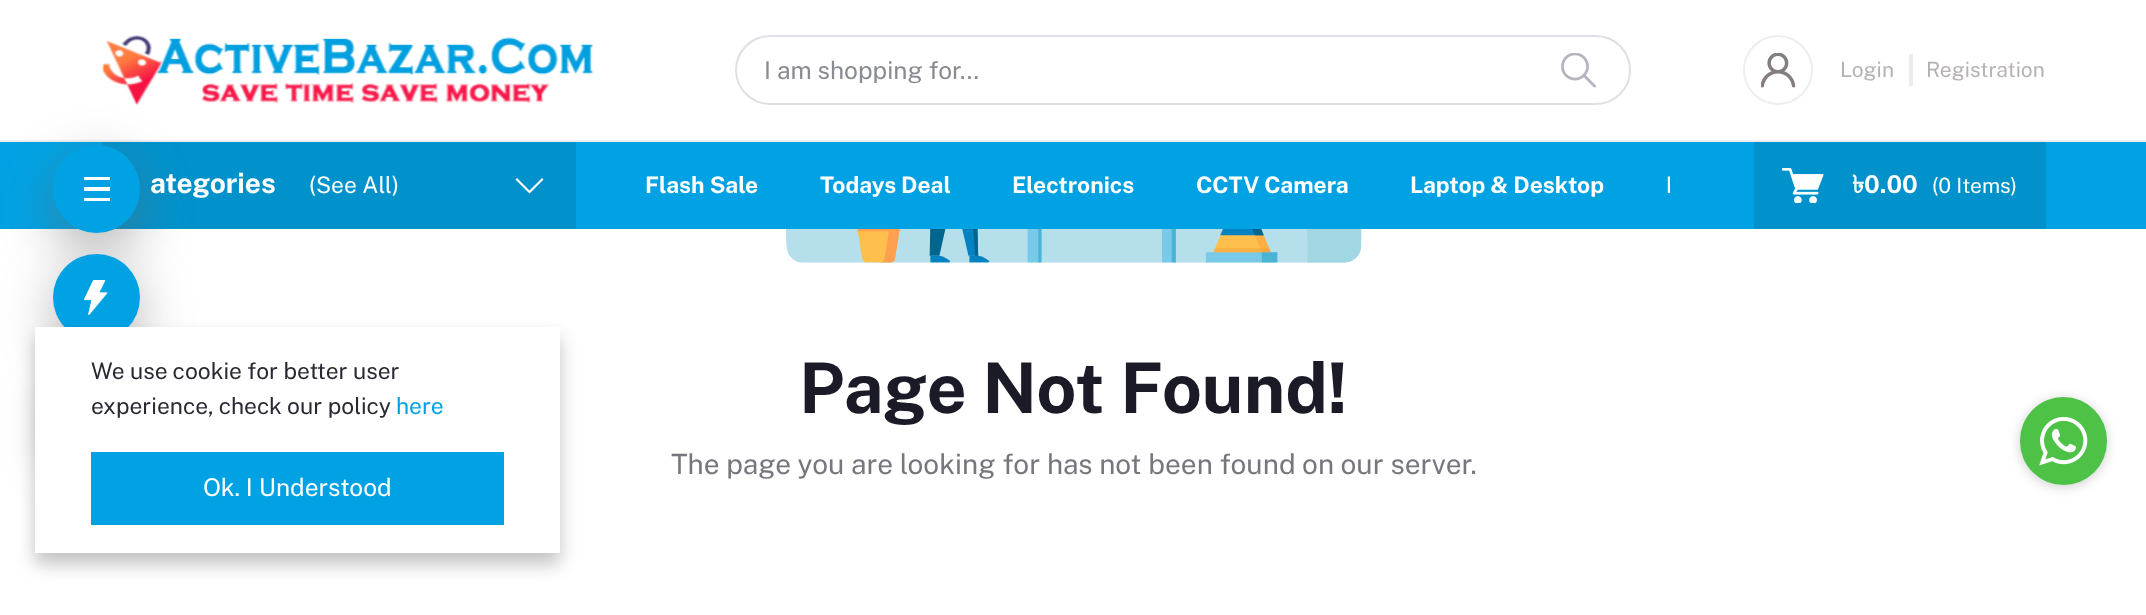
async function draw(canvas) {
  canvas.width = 2146
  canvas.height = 615
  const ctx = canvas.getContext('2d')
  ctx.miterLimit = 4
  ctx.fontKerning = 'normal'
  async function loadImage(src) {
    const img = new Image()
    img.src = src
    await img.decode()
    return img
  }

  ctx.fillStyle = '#fff'
  ctx.fillRect(0, 0, 2146, 615)
  ctx.fillStyle = '#ededf2'
  ctx.fillRect(0, 140, 2146, 2)
  ctx.drawImage(await loadImage('image1.png'), 102, 35, 492, 71)
  ctx.fillStyle = '#01a2e3'
  ctx.fillRect(0, 142, 2146, 87)
  ctx.fillStyle = '#0192cc'
  ctx.fillRect(103, 142, 473, 87)
  ctx.fillStyle = '#69696980'
  ctx.filter = 'blur(26px)'
  ctx.beginPath()
  ctx.roundRect(53, 163, 87, 87, 43.5)
  ctx.fill()
  ctx.filter = 'none'
  ctx.filter = 'blur(26px)'
  ctx.beginPath()
  ctx.roundRect(53, 271, 87, 88, 43.5)
  ctx.fill()
  ctx.filter = 'none'
  ctx.fillStyle = '#01a2e3'
  ctx.beginPath()
  ctx.roundRect(53, 145, 87, 88, 43.5)
  ctx.fill()
  ctx.fillStyle = '#fff'
  ctx.fillRect(84, 187, 26, 4)
  ctx.fillRect(84, 177, 26, 3)
  ctx.fillRect(84, 198, 26, 3)
  ctx.fillStyle = '#69696980'
  ctx.filter = 'blur(26px)'
  ctx.beginPath()
  ctx.roundRect(53, 380, 87, 87, 43.5)
  ctx.fill()
  ctx.filter = 'none'
  ctx.fillStyle = '#01a2e3'
  ctx.beginPath()
  ctx.arc(96.5, 297.5, 43.5, 0, 2 * Math.PI)
  ctx.fill()
  ctx.drawImage(await loadImage('image0.png'), 84, 280, 24, 35)
  ctx.beginPath()
  ctx.roundRect(736, 36, 894, 68, 34)
  ctx.strokeStyle = '#dfdfe6'
  ctx.lineWidth = 2
  ctx.stroke()
  ctx.font = '24.5px Public Sans'
  ctx.fillStyle = '#898b92'
  ctx.fillText('I am shopping for...', 764, 79)
  ctx.drawImage(await loadImage('image2.png'), 1561, 53, 35, 35)
  ctx.beginPath()
  ctx.arc(1778, 70, 34, 0, 2 * Math.PI)
  ctx.strokeStyle = '#ededf2'
  ctx.stroke()
  ctx.drawImage(await loadImage('image3.png'), 1761, 53, 35, 35)
  ctx.fillStyle = '#ececf0'
  ctx.fillRect(1909, 54, 4, 32)
  ctx.font = '21px Public Sans'
  ctx.fillStyle = '#b6b2b2'
  ctx.fillText('Login', 1840, 77)
  ctx.fillText('Registration', 1926, 77)
  ctx.font = 'bold 28px Public Sans'
  ctx.fillStyle = '#fff'
  ctx.fillText('ategories', 150, 193)
  ctx.font = '22.75px Public Sans'
  ctx.fillText('(See All)', 309, 193)
  ctx.beginPath()
  ctx.moveTo(517, 178)
  ctx.lineTo(515.5, 179.5)
  ctx.lineTo(529.5, 193.5)
  ctx.lineTo(543.5, 179.5)
  ctx.lineTo(542, 178)
  ctx.lineTo(529.5, 190.5)
  ctx.closePath()
  ctx.fill()
  ctx.font = 'bold 22.75px Public Sans'
  ctx.fillText('Flash Sale', 645, 193)
  ctx.fillText('Todays Deal', 820, 193)
  ctx.fillText('Electronics', 1012, 193)
  ctx.fillText('CCTV Camera', 1196, 193)
  ctx.fillText('Laptop & Desktop', 1410, 193)
  ctx.save()
  ctx.beginPath()
  ctx.rect(618, 142, 1052, 87)
  ctx.clip()
  ctx.fillText('I', 1666, 193)
  ctx.restore()
  ctx.fillStyle = '#0192cc'
  ctx.fillRect(1754, 142, 292, 87)
  ctx.drawImage(await loadImage('image4.png'), 1782, 168, 42, 35)
  ctx.font = 'bold 24.5px Lohit Bengali'
  ctx.fillStyle = '#fff'
  ctx.fillText('৳', 1852, 193)
  ctx.font = 'bold 24.5px Public Sans'
  ctx.fillText('0.00', 1864, 193)
  ctx.font = '21px Public Sans'
  ctx.fillText('(0 Items)', 1932, 193)
  ctx.drawImage(await loadImage('image5.png'), 786, 229, 576, 34)
  ctx.font = 'bold 70px Public Sans'
  ctx.fillStyle = '#1b1b28'
  ctx.fillText('Page Not Found!', 799, 413)
  ctx.font = '28px Public Sans'
  ctx.fillStyle = '#76767e'
  ctx.fillText('The page you are looking for has not been found on our server.', 671, 474)
  ctx.fillStyle = '#0000003d'
  ctx.filter = 'blur(9px)'
  ctx.beginPath()
  ctx.rect(35, 338, 525, 226)
  ctx.fill()
  ctx.filter = 'none'
  ctx.fillStyle = '#fff'
  ctx.fillRect(35, 327, 525, 226)
  ctx.font = '22.75px Public Sans'
  ctx.fillStyle = '#292933'
  ctx.fillText('We use cookie for better user', 91, 379)
  ctx.fillText('experience, check our policy', 91, 414)
  ctx.fillStyle = '#01a2e3'
  ctx.fillText('here', 396, 414)
  ctx.fillRect(91, 452, 413, 73)
  ctx.font = '24.5px Public Sans'
  ctx.fillStyle = '#fff'
  ctx.fillText('Ok. I Understood', 203, 496)
  ctx.fillStyle = '#88888866'
  ctx.filter = 'blur(6px)'
  ctx.beginPath()
  ctx.roundRect(2020, 399, 87, 88, 43.5)
  ctx.fill()
  ctx.filter = 'none'
  ctx.fillStyle = '#4dc247'
  ctx.beginPath()
  ctx.roundRect(2020, 397, 87, 88, 43.5)
  ctx.fill()
  ctx.drawImage(await loadImage('image6.png'), 2039, 416, 49, 50)
}

draw(document.querySelector('canvas'))
